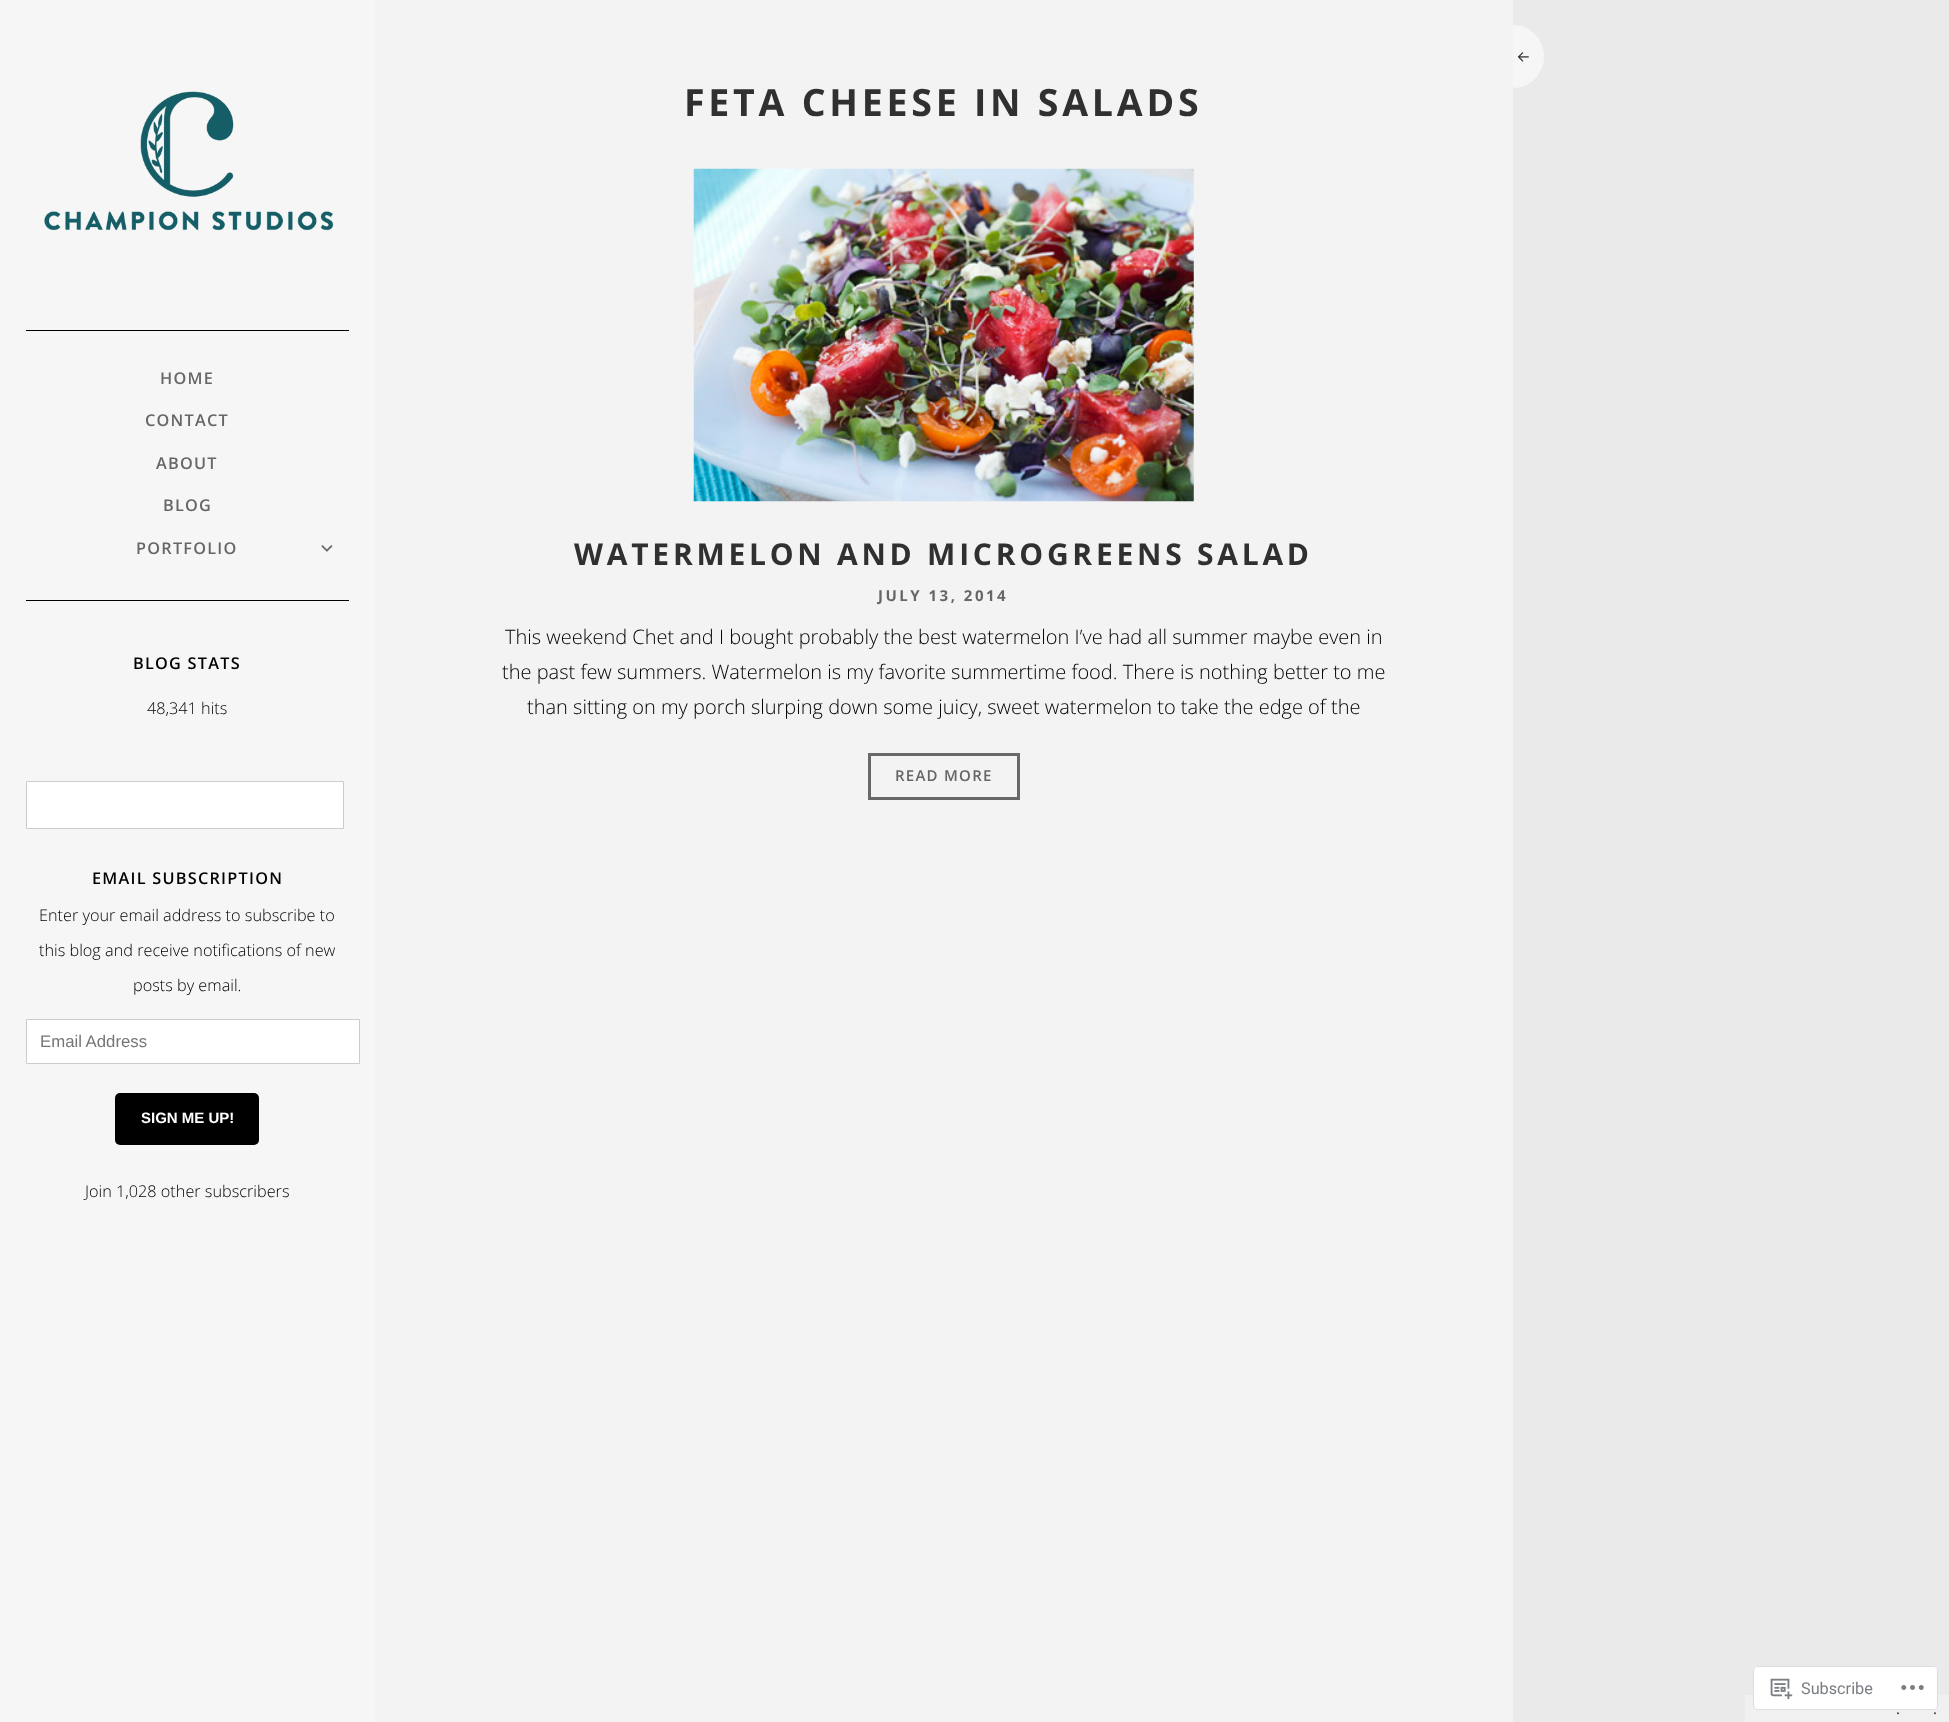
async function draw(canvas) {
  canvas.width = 1949
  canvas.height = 1722
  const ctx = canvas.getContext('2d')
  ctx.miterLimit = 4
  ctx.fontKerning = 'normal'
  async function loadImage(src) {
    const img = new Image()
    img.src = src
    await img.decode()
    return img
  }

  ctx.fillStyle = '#eaeaea'
  ctx.fillRect(0, 0, 1949, 1722)
  ctx.fillStyle = '#f6f6f6'
  ctx.fillRect(0, 0, 375, 1722)
  ctx.drawImage(await loadImage('image0.png'), 44, 91, 290, 140)
  ctx.fillStyle = '#000'
  ctx.fillRect(26, 330, 323, 1)
  ctx.fillRect(26, 600, 323, 1)
  ctx.letterSpacing = '1.25px'
  ctx.font = '600 16.25px Open Sans'
  ctx.fillStyle = '#666'
  ctx.fillText('HOME', 160, 384)
  ctx.fillText('CONTACT', 145, 426)
  ctx.fillText('ABOUT', 156, 469)
  ctx.fillText('BLOG', 163, 511)
  ctx.fillText('PORTFOLIO', 136, 554)
  ctx.drawImage(await loadImage('image1.png'), 321, 545, 12, 7)
  ctx.fillStyle = '#000'
  ctx.fillText('BLOG STATS', 133, 669)
  ctx.letterSpacing = '0px'
  ctx.font = '300 16.25px Open Sans'
  ctx.fillText('48,341 hits', 147, 714)
  ctx.fillStyle = '#fff'
  ctx.beginPath()
  ctx.rect(26.5, 781.5, 317, 47)
  ctx.fill()
  ctx.strokeStyle = '#ccc'
  ctx.stroke()
  ctx.letterSpacing = '1.25px'
  ctx.font = '600 16.25px Open Sans'
  ctx.fillStyle = '#000'
  ctx.fillText('EMAIL SUBSCRIPTION', 92, 884)
  ctx.letterSpacing = '0px'
  ctx.font = '300 16.25px Open Sans'
  ctx.fillText('Enter your email address to subscribe to', 39, 921)
  ctx.fillText('this blog and receive notifications of new', 39, 956)
  ctx.fillText('posts by email.', 133, 991)
  ctx.fillStyle = '#fff'
  ctx.beginPath()
  ctx.rect(26.5, 1019.5, 333, 44)
  ctx.fill()
  ctx.stroke()
  ctx.font = '16.75px Liberation Sans'
  ctx.fillStyle = '#757575'
  ctx.fillText('Email Address', 40, 1047)
  ctx.fillStyle = '#000'
  ctx.beginPath()
  ctx.roundRect(115, 1093, 144, 52, 5)
  ctx.fill()
  ctx.font = 'bold 15px Liberation Sans'
  ctx.fillStyle = '#fff'
  ctx.fillText('SIGN ME UP!', 141, 1123)
  ctx.font = '300 16.25px Open Sans'
  ctx.fillStyle = '#000'
  ctx.fillText('Join 1,028 other subscribers', 85, 1197)
  ctx.fillStyle = '#f6f6f6'
  ctx.beginPath()
  ctx.roundRect(1513, 25, 31, 63, [0, 31, 31, 0])
  ctx.fill()
  ctx.drawImage(await loadImage('image2.png'), 1517, 52, 12, 10)
  ctx.fillStyle = '#f3f3f3'
  ctx.fillRect(375, 0, 1138, 1722)
  ctx.letterSpacing = '3.75px'
  ctx.font = 'bold 37.5px Open Sans'
  ctx.fillStyle = '#303030'
  ctx.fillText('FETA CHEESE IN SALADS', 684, 116)
  ctx.drawImage(await loadImage('image3.png'), 693, 168, 501, 334)
  ctx.font = 'bold 30px Open Sans'
  ctx.fillText('WATERMELON AND MICROGREENS SALAD', 574, 565)
  ctx.letterSpacing = '2.5px'
  ctx.font = 'bold 15px Open Sans'
  ctx.fillStyle = '#666'
  ctx.fillText('JULY 13, 2014', 878, 601)
  ctx.letterSpacing = '0px'
  ctx.font = '300 20px Open Sans'
  ctx.fillStyle = '#000'
  ctx.fillText('This weekend Chet and I bought probably the best watermelon I’ve had all summer maybe even in', 505, 644)
  ctx.fillText('the past few summers. Watermelon is my favorite summertime food. There is nothing better to me', 502, 679)
  ctx.fillText('than sitting on my porch slurping down some juicy, sweet watermelon to take the edge of the', 527, 714)
  ctx.strokeStyle = '#686868'
  ctx.lineWidth = 3
  ctx.strokeRect(869.5, 754.5, 149, 44)
  ctx.letterSpacing = '1.25px'
  ctx.font = '600 15px Open Sans'
  ctx.fillStyle = '#666'
  ctx.fillText('READ MORE', 895, 781)
  ctx.fillStyle = '#f0f0f0'
  ctx.fillRect(1745, 1695, 204, 27)
  ctx.fillStyle = '#fffffffa'
  ctx.beginPath()
  ctx.roundRect(1753, 1666, 185, 44, 4)
  ctx.fill()
  ctx.beginPath()
  ctx.roundRect(1753.5, 1666.5, 184, 43, 3.5)
  ctx.strokeStyle = '#dcdcdefa'
  ctx.lineWidth = 1
  ctx.stroke()
  ctx.drawImage(await loadImage('image4.png'), 1770, 1678, 23, 22)
  ctx.letterSpacing = '0px'
  ctx.font = '16.25px Roboto'
  ctx.fillStyle = '#7a7e84'
  ctx.fillText('Subscribe', 1801, 1694)
  ctx.drawImage(await loadImage('image5.png'), 1901, 1685, 23, 5)
  ctx.letterSpacing = '1px'
  ctx.font = '15px Open Sans'
  ctx.fillStyle = '#303030'
  ctx.fillText('.', 1896, 1714)
  ctx.fillText('.', 1933, 1714)
}

draw(document.querySelector('canvas'))
